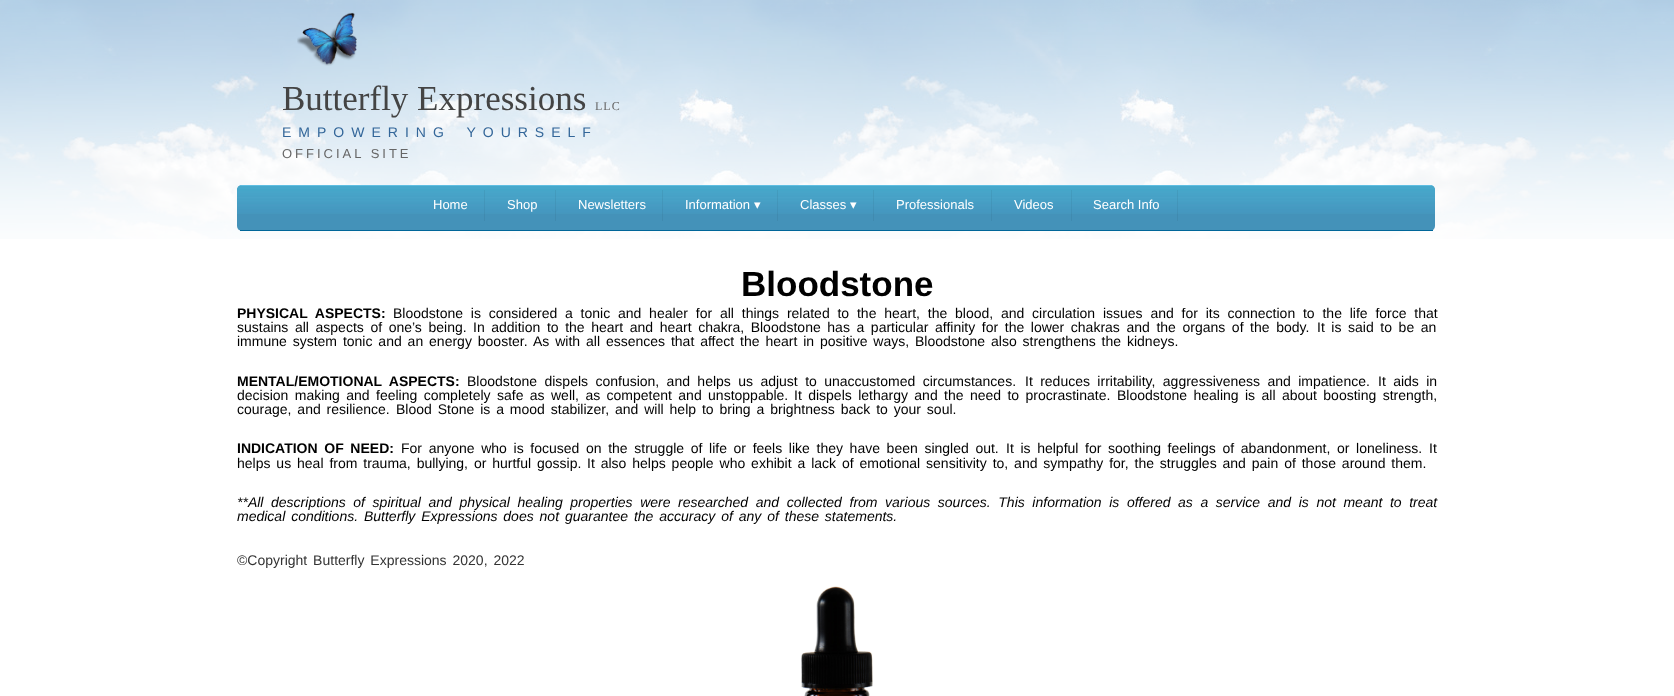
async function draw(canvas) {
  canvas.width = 1674
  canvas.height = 696
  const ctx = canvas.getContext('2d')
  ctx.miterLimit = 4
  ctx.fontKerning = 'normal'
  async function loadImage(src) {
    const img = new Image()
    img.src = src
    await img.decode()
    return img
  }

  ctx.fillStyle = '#fff'
  ctx.fillRect(0, 0, 1674, 696)
  ctx.drawImage(await loadImage('image0.png'), 0, 0, 1674, 239)
  ctx.drawImage(await loadImage('image1.png'), 297, 12, 60, 54)
  ctx.font = '35px Liberation Serif'
  ctx.fillStyle = '#444'
  ctx.fillText('Butterfly Expressions', 282, 110)
  ctx.letterSpacing = '1px'
  ctx.font = '12px Liberation Serif'
  ctx.fillStyle = '#666'
  ctx.fillText('LLC', 595, 110)
  ctx.letterSpacing = '7px'
  ctx.wordSpacing = '5px'
  ctx.font = '14px Liberation Sans'
  ctx.fillStyle = '#369'
  ctx.fillText('EMPOWERING YOURSELF', 282, 137)
  ctx.letterSpacing = '3px'
  ctx.wordSpacing = '0px'
  ctx.font = '13px Liberation Sans'
  ctx.fillStyle = '#666'
  ctx.fillText('OFFICIAL SITE', 282, 158)
  ctx.fillStyle = '#4492b9'
  ctx.beginPath()
  ctx.roundRect(237, 185, 1198, 46, 5)
  ctx.fill()
  ctx.drawImage(await loadImage('image2.png'), 237, 185, 1198, 29)
  ctx.fillStyle = '#069'
  ctx.fillRect(240, 230, 1193, 1)
  ctx.fillStyle = '#0000000d'
  ctx.fillRect(484, 190, 1, 31)
  ctx.letterSpacing = '0px'
  ctx.fillStyle = '#fff'
  ctx.fillText('Home', 433, 209)
  ctx.fillStyle = '#0000000d'
  ctx.fillRect(555, 190, 1, 31)
  ctx.fillStyle = '#fff'
  ctx.fillText('Shop', 507, 209)
  ctx.fillStyle = '#0000000d'
  ctx.fillRect(662, 190, 1, 31)
  ctx.fillStyle = '#fff'
  ctx.fillText('Newsletters', 578, 209)
  ctx.fillStyle = '#0000000d'
  ctx.fillRect(777, 190, 1, 31)
  ctx.fillStyle = '#fff'
  ctx.fillText('Information', 685, 209)
  ctx.font = '13px DejaVu Sans'
  ctx.fillText('▾', 754, 209)
  ctx.fillStyle = '#0000000d'
  ctx.fillRect(873, 190, 1, 31)
  ctx.font = '13px Liberation Sans'
  ctx.fillStyle = '#fff'
  ctx.fillText('Classes', 800, 209)
  ctx.font = '13px DejaVu Sans'
  ctx.fillText('▾', 850, 209)
  ctx.fillStyle = '#0000000d'
  ctx.fillRect(991, 190, 1, 31)
  ctx.font = '13px Liberation Sans'
  ctx.fillStyle = '#fff'
  ctx.fillText('Professionals', 896, 209)
  ctx.fillStyle = '#0000000d'
  ctx.fillRect(1071, 190, 1, 31)
  ctx.fillStyle = '#fff'
  ctx.fillText('Videos', 1014, 209)
  ctx.fillStyle = '#0000000d'
  ctx.fillRect(1177, 190, 1, 31)
  ctx.fillStyle = '#fff'
  ctx.fillText('Search Info', 1093, 209)
  ctx.font = 'bold 35px Liberation Sans'
  ctx.fillStyle = '#000'
  ctx.fillText('Bloodstone', 741, 296)
  ctx.wordSpacing = '3.9px'
  ctx.font = 'bold 14px Liberation Sans'
  ctx.fillText('PHYSICAL ASPECTS:', 237, 318)
  ctx.font = '14px Liberation Sans'
  ctx.fillText('Bloodstone is considered a tonic and healer for all things related to the heart, the blood, and circulation issues and for its connection to the life force that', 393, 318)
  ctx.wordSpacing = '2.7px'
  ctx.fillText('sustains all aspects of one’s being.', 237, 332)
  ctx.fillText('In addition to the heart and heart chakra, Bloodstone has a particular affinity for the lower chakras and the organs of the body.', 473, 332)
  ctx.fillText('It is said to be an', 1317, 332)
  ctx.wordSpacing = '2px'
  ctx.fillText('immune system tonic and an energy booster.', 237, 346)
  ctx.fillText('As with all essences that affect the heart in positive ways, Bloodstone also strengthens the kidneys.', 533, 346)
  ctx.wordSpacing = '3.5px'
  ctx.font = 'bold 14px Liberation Sans'
  ctx.fillText('MENTAL/EMOTIONAL ASPECTS:', 237, 386)
  ctx.font = '14px Liberation Sans'
  ctx.fillText('Bloodstone dispels confusion, and helps us adjust to unaccustomed circumstances.', 467, 386)
  ctx.fillText('It reduces irritability, aggressiveness and impatience.', 1025, 386)
  ctx.fillText('It aids in', 1378, 386)
  ctx.wordSpacing = '2.5px'
  ctx.fillText('decision making and feeling completely safe as well, as competent and unstoppable.', 237, 400)
  ctx.fillText('It dispels lethargy and the need to procrastinate.', 794, 400)
  ctx.fillText('Bloodstone healing is all about boosting strength,', 1117, 400)
  ctx.wordSpacing = '2px'
  ctx.fillText('courage, and resilience.', 237, 414)
  ctx.fillText('Blood Stone is a mood stabilizer, and will help to bring a brightness back to your soul.', 396, 414)
  ctx.wordSpacing = '2.75px'
  ctx.font = 'bold 14px Liberation Sans'
  ctx.fillText('INDICATION OF NEED:', 237, 453)
  ctx.font = '14px Liberation Sans'
  ctx.fillText('For anyone who is focused on the struggle of life or feels like they have been singled out.', 401, 453)
  ctx.fillText('It is helpful for soothing feelings of abandonment, or loneliness.', 1006, 453)
  ctx.wordSpacing = '0px'
  ctx.fillText('It', 1429, 453)
  ctx.wordSpacing = '2px'
  ctx.fillText('helps us heal from trauma, bullying, or hurtful gossip.', 237, 468)
  ctx.fillText('It also helps people who exhibit a lack of emotional sensitivity to, and sympathy for, the struggles and pain of those around them.', 587, 468)
  ctx.wordSpacing = '3.7px'
  ctx.font = 'italic 14px Liberation Sans'
  ctx.fillText('**All descriptions of spiritual and physical healing properties were researched and collected from various sources. This information is offered as a service and is not meant to treat', 237, 507)
  ctx.wordSpacing = '2px'
  ctx.fillText('medical conditions. Butterfly Expressions does not guarantee the accuracy of any of these statements.', 237, 521)
  ctx.font = '14px Liberation Sans'
  ctx.fillStyle = '#333'
  ctx.fillText('©Copyright Butterfly Expressions 2020, 2022', 237, 565)
  ctx.drawImage(await loadImage('image3.png'), 801, 586, 72, 110)
}

draw(document.querySelector('canvas'))
